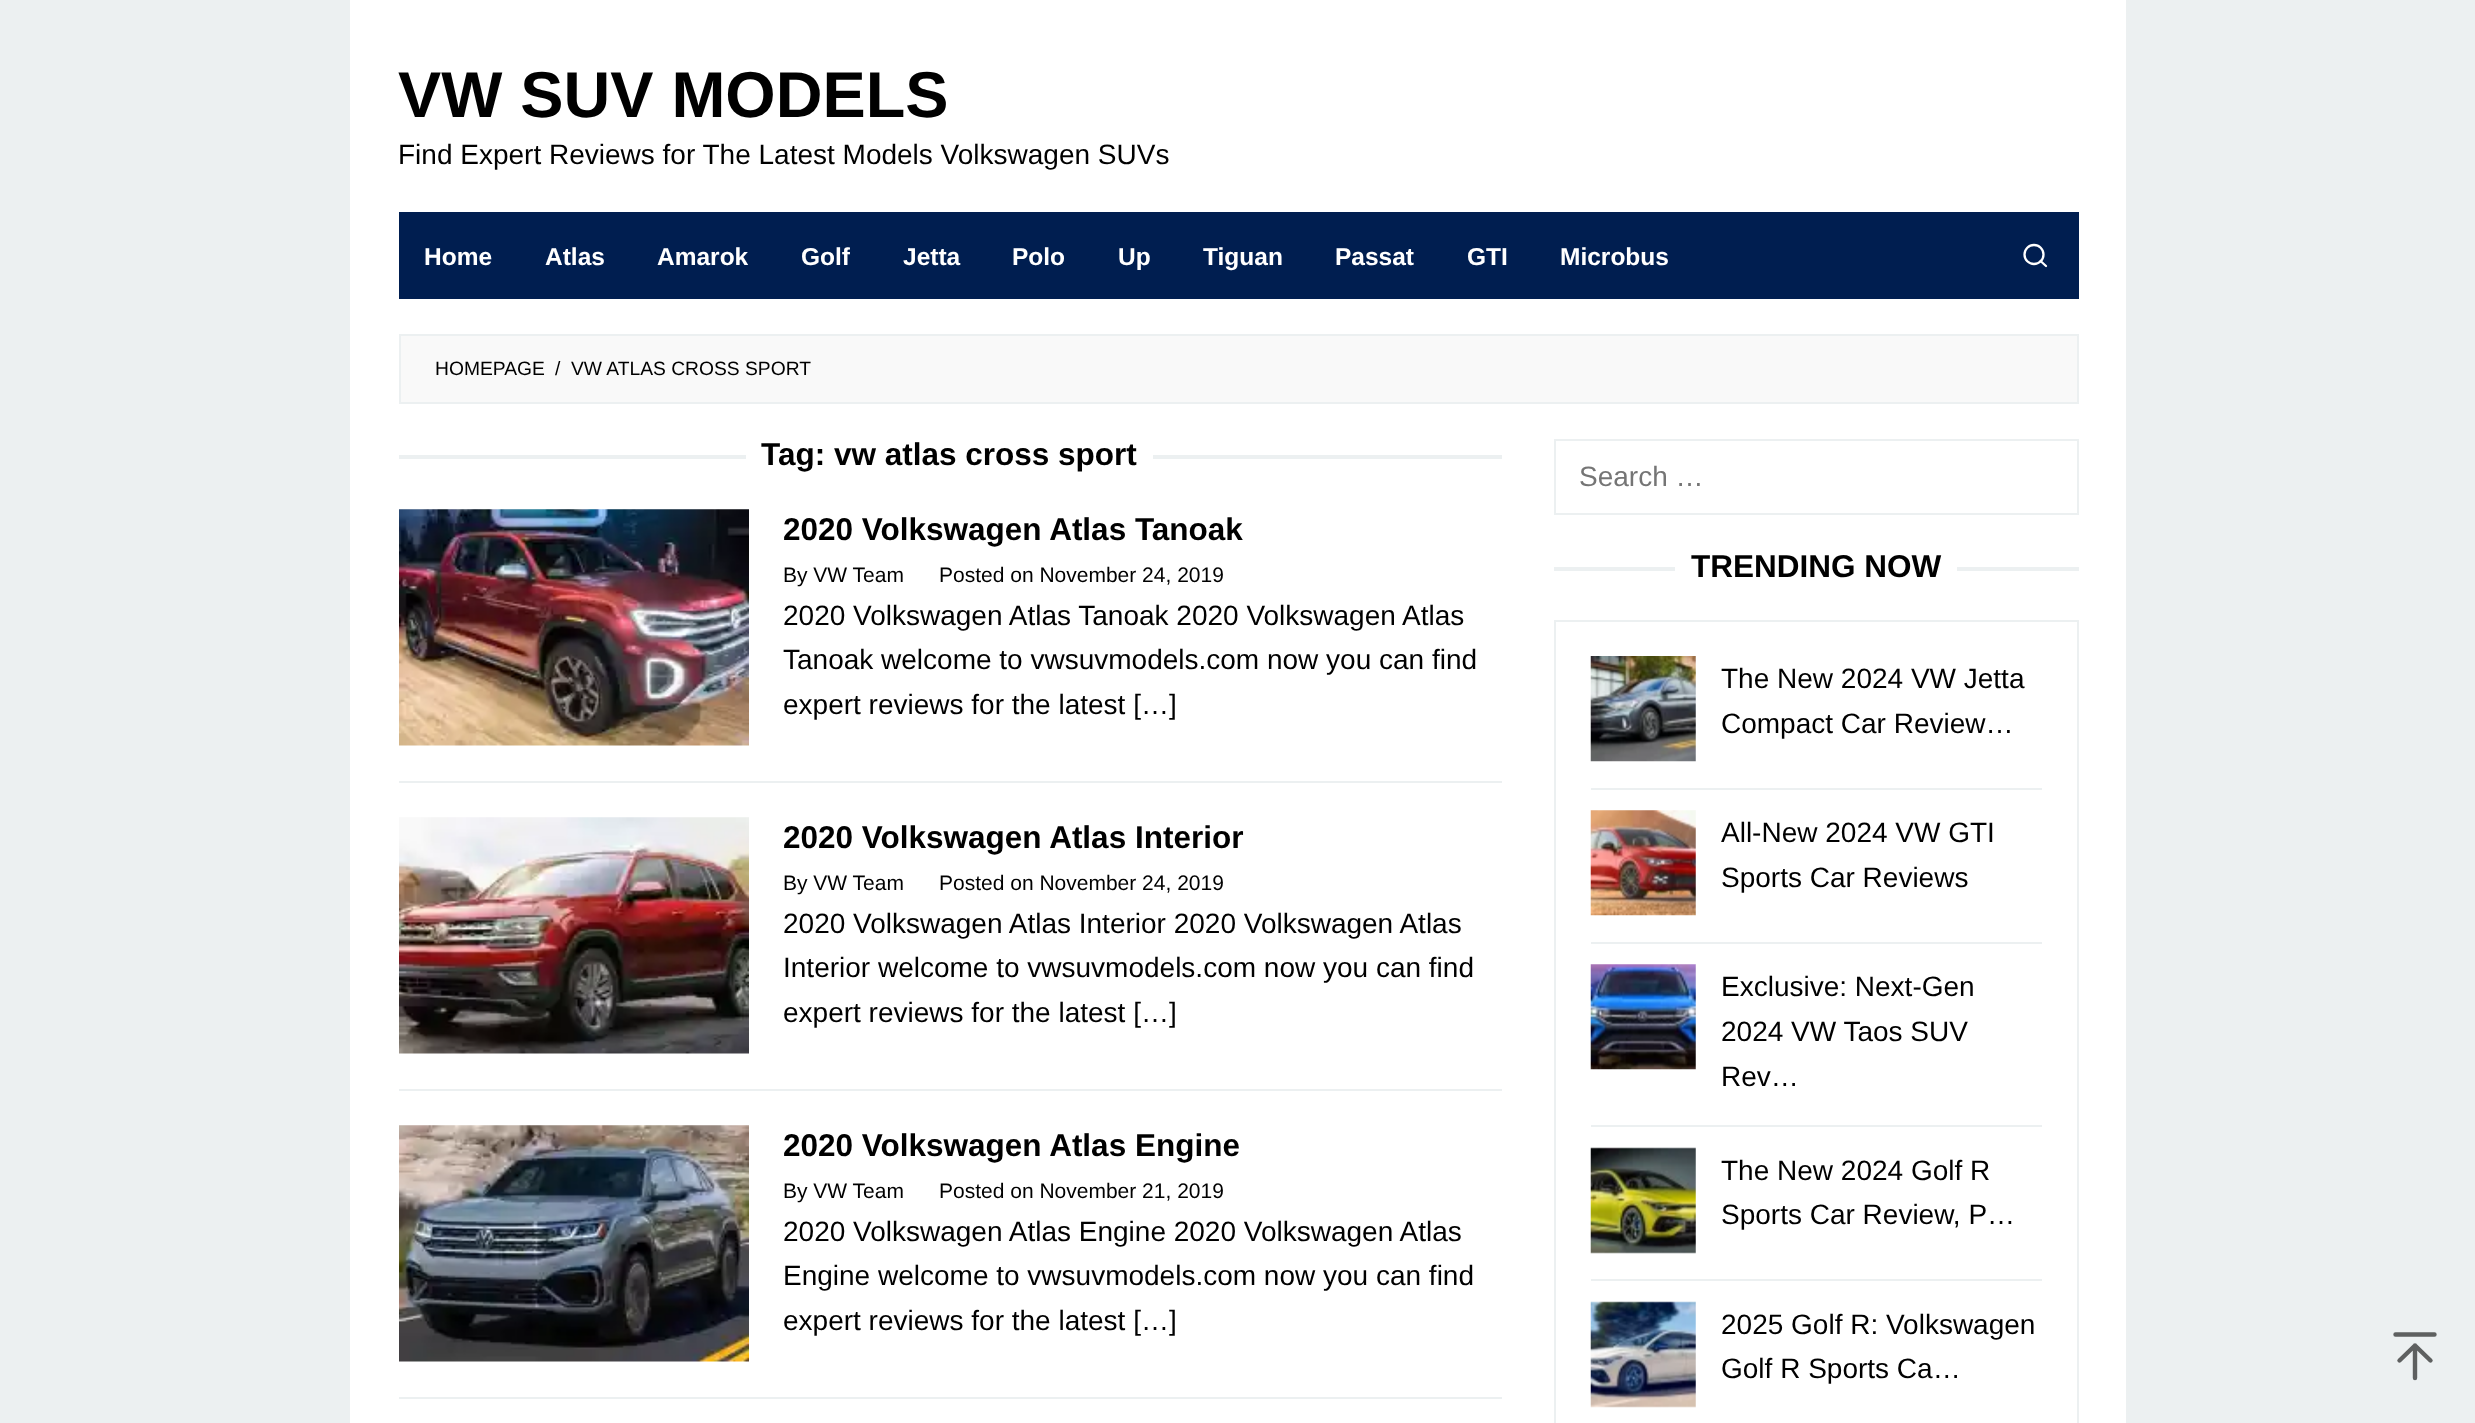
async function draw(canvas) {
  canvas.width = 2475
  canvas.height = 1423
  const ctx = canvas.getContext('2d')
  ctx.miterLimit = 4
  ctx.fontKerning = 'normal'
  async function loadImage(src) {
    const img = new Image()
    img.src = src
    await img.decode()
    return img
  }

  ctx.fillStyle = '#ecf0f1'
  ctx.fillRect(0, 0, 2475, 1423)
  ctx.fillStyle = '#fff'
  ctx.fillRect(350, 0, 1776, 212)
  ctx.font = 'bold 64.75px Liberation Sans'
  ctx.fillStyle = '#000'
  ctx.fillText('VW SUV MODELS', 398, 117)
  ctx.font = '28px Liberation Sans'
  ctx.fillText('Find Expert Reviews for The Latest Models Volkswagen SUVs', 398, 164)
  ctx.fillStyle = '#fff'
  ctx.fillRect(350, 212, 1776, 1211)
  ctx.fillStyle = '#001e50'
  ctx.fillRect(399, 212, 1680, 87)
  ctx.font = 'bold 24.5px Liberation Sans'
  ctx.fillStyle = '#fff'
  ctx.fillText('Home', 424, 265)
  ctx.fillText('Atlas', 545, 265)
  ctx.fillText('Amarok', 657, 265)
  ctx.fillText('Golf', 801, 265)
  ctx.fillText('Jetta', 903, 265)
  ctx.fillText('Polo', 1012, 265)
  ctx.fillText('Up', 1118, 265)
  ctx.fillText('Tiguan', 1203, 265)
  ctx.fillText('Passat', 1335, 265)
  ctx.fillText('GTI', 1467, 265)
  ctx.fillText('Microbus', 1560, 265)
  ctx.beginPath()
  ctx.arc(2034, 254.5, 9.5, 0, 2 * Math.PI)
  ctx.strokeStyle = '#fff'
  ctx.lineWidth = 2.3
  ctx.stroke()
  ctx.beginPath()
  ctx.moveTo(2046, 266)
  ctx.lineTo(2040.5, 261)
  ctx.lineCap = 'round'
  ctx.lineJoin = 'round'
  ctx.stroke()
  ctx.fillStyle = '#f9f9f9'
  ctx.beginPath()
  ctx.rect(400, 335, 1678, 68)
  ctx.fill()
  ctx.strokeStyle = '#ecf0f1'
  ctx.lineWidth = 2
  ctx.lineJoin = 'miter'
  ctx.stroke()
  ctx.font = '19.25px Liberation Sans'
  ctx.fillStyle = '#000'
  ctx.fillText('HOMEPAGE', 435, 375)
  ctx.fillText('/', 555, 375)
  ctx.fillText('VW ATLAS CROSS SPORT', 571, 375)
  ctx.fillStyle = '#ecf0f1'
  ctx.fillRect(399, 455, 347, 4)
  ctx.font = 'bold 31.5px Liberation Sans'
  ctx.fillStyle = '#000'
  ctx.fillText('Tag: vw atlas cross sport', 761, 465)
  ctx.fillStyle = '#ecf0f1'
  ctx.fillRect(1153, 455, 349, 4)
  ctx.fillRect(399, 781, 1103, 2)
  ctx.drawImage(await loadImage('image0.png'), 399, 509, 350, 237)
  ctx.fillStyle = '#000'
  ctx.fillText('2020 Volkswagen Atlas Tanoak', 783, 540)
  ctx.font = '21px Liberation Sans'
  ctx.fillText('By VW Team', 783, 582)
  ctx.fillText('Posted on November 24, 2019', 939, 582)
  ctx.font = '28px Liberation Sans'
  ctx.fillText('2020 Volkswagen Atlas Tanoak 2020 Volkswagen Atlas', 783, 625)
  ctx.fillText('Tanoak welcome to vwsuvmodels.com now you can find', 783, 669)
  ctx.fillText('expert reviews for the latest […]', 783, 714)
  ctx.fillStyle = '#ecf0f1'
  ctx.fillRect(399, 1089, 1103, 2)
  ctx.drawImage(await loadImage('image1.png'), 399, 817, 350, 237)
  ctx.font = 'bold 31.5px Liberation Sans'
  ctx.fillStyle = '#000'
  ctx.fillText('2020 Volkswagen Atlas Interior', 783, 848)
  ctx.font = '21px Liberation Sans'
  ctx.fillText('By VW Team', 783, 890)
  ctx.fillText('Posted on November 24, 2019', 939, 890)
  ctx.font = '28px Liberation Sans'
  ctx.fillText('2020 Volkswagen Atlas Interior 2020 Volkswagen Atlas', 783, 933)
  ctx.fillText('Interior welcome to vwsuvmodels.com now you can find', 783, 977)
  ctx.fillText('expert reviews for the latest […]', 783, 1022)
  ctx.fillStyle = '#ecf0f1'
  ctx.fillRect(399, 1397, 1103, 2)
  ctx.drawImage(await loadImage('image2.png'), 399, 1125, 350, 237)
  ctx.font = 'bold 31.5px Liberation Sans'
  ctx.fillStyle = '#000'
  ctx.fillText('2020 Volkswagen Atlas Engine', 783, 1156)
  ctx.font = '21px Liberation Sans'
  ctx.fillText('By VW Team', 783, 1198)
  ctx.fillText('Posted on November 21, 2019', 939, 1198)
  ctx.font = '28px Liberation Sans'
  ctx.fillText('2020 Volkswagen Atlas Engine 2020 Volkswagen Atlas', 783, 1241)
  ctx.fillText('Engine welcome to vwsuvmodels.com now you can find', 783, 1285)
  ctx.fillText('expert reviews for the latest […]', 783, 1330)
  ctx.strokeRect(1555, 440, 523, 74)
  ctx.fillStyle = '#757575'
  ctx.fillText('Search …', 1579, 486)
  ctx.fillStyle = '#ecf0f1'
  ctx.fillRect(1554, 567, 121, 4)
  ctx.font = 'bold 31.5px Liberation Sans'
  ctx.fillStyle = '#000'
  ctx.fillText('TRENDING NOW', 1691, 577)
  ctx.fillStyle = '#ecf0f1'
  ctx.fillRect(1957, 567, 122, 4)
  ctx.strokeRect(1555, 621, 523, 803)
  ctx.fillRect(1591, 788, 451, 2)
  ctx.drawImage(await loadImage('image3.png'), 1590, 656, 106, 106)
  ctx.font = '28px Liberation Sans'
  ctx.fillStyle = '#000'
  ctx.fillText('The New 2024 VW Jetta', 1721, 688)
  ctx.fillText('Compact Car Review…', 1721, 733)
  ctx.fillStyle = '#ecf0f1'
  ctx.fillRect(1591, 942, 451, 2)
  ctx.drawImage(await loadImage('image4.png'), 1590, 810, 106, 106)
  ctx.fillStyle = '#000'
  ctx.fillText('All-New 2024 VW GTI', 1721, 842)
  ctx.fillText('Sports Car Reviews', 1721, 887)
  ctx.fillStyle = '#ecf0f1'
  ctx.fillRect(1591, 1125, 451, 2)
  ctx.drawImage(await loadImage('image5.png'), 1590, 964, 106, 106)
  ctx.fillStyle = '#000'
  ctx.fillText('Exclusive: Next-Gen', 1721, 996)
  ctx.fillText('2024 VW Taos SUV', 1721, 1041)
  ctx.fillText('Rev…', 1721, 1086)
  ctx.fillStyle = '#ecf0f1'
  ctx.fillRect(1591, 1279, 451, 2)
  ctx.drawImage(await loadImage('image6.png'), 1590, 1147, 106, 107)
  ctx.fillStyle = '#000'
  ctx.fillText('The New 2024 Golf R', 1721, 1180)
  ctx.fillText('Sports Car Review, P…', 1721, 1224)
  ctx.drawImage(await loadImage('image7.png'), 1590, 1301, 106, 107)
  ctx.fillText('2025 Golf R: Volkswagen', 1721, 1334)
  ctx.fillText('Golf R Sports Ca…', 1721, 1378)
  ctx.beginPath()
  ctx.moveTo(2415, 1378)
  ctx.lineTo(2415, 1345.5)
  ctx.moveTo(2399.5, 1360.5)
  ctx.lineTo(2415, 1345.5)
  ctx.lineTo(2430.5, 1360.5)
  ctx.moveTo(2395.5, 1334.5)
  ctx.lineTo(2434.5, 1334.5)
  ctx.strokeStyle = '#5e6060'
  ctx.lineWidth = 4.4
  ctx.lineJoin = 'round'
  ctx.stroke()
}

draw(document.querySelector('canvas'))
